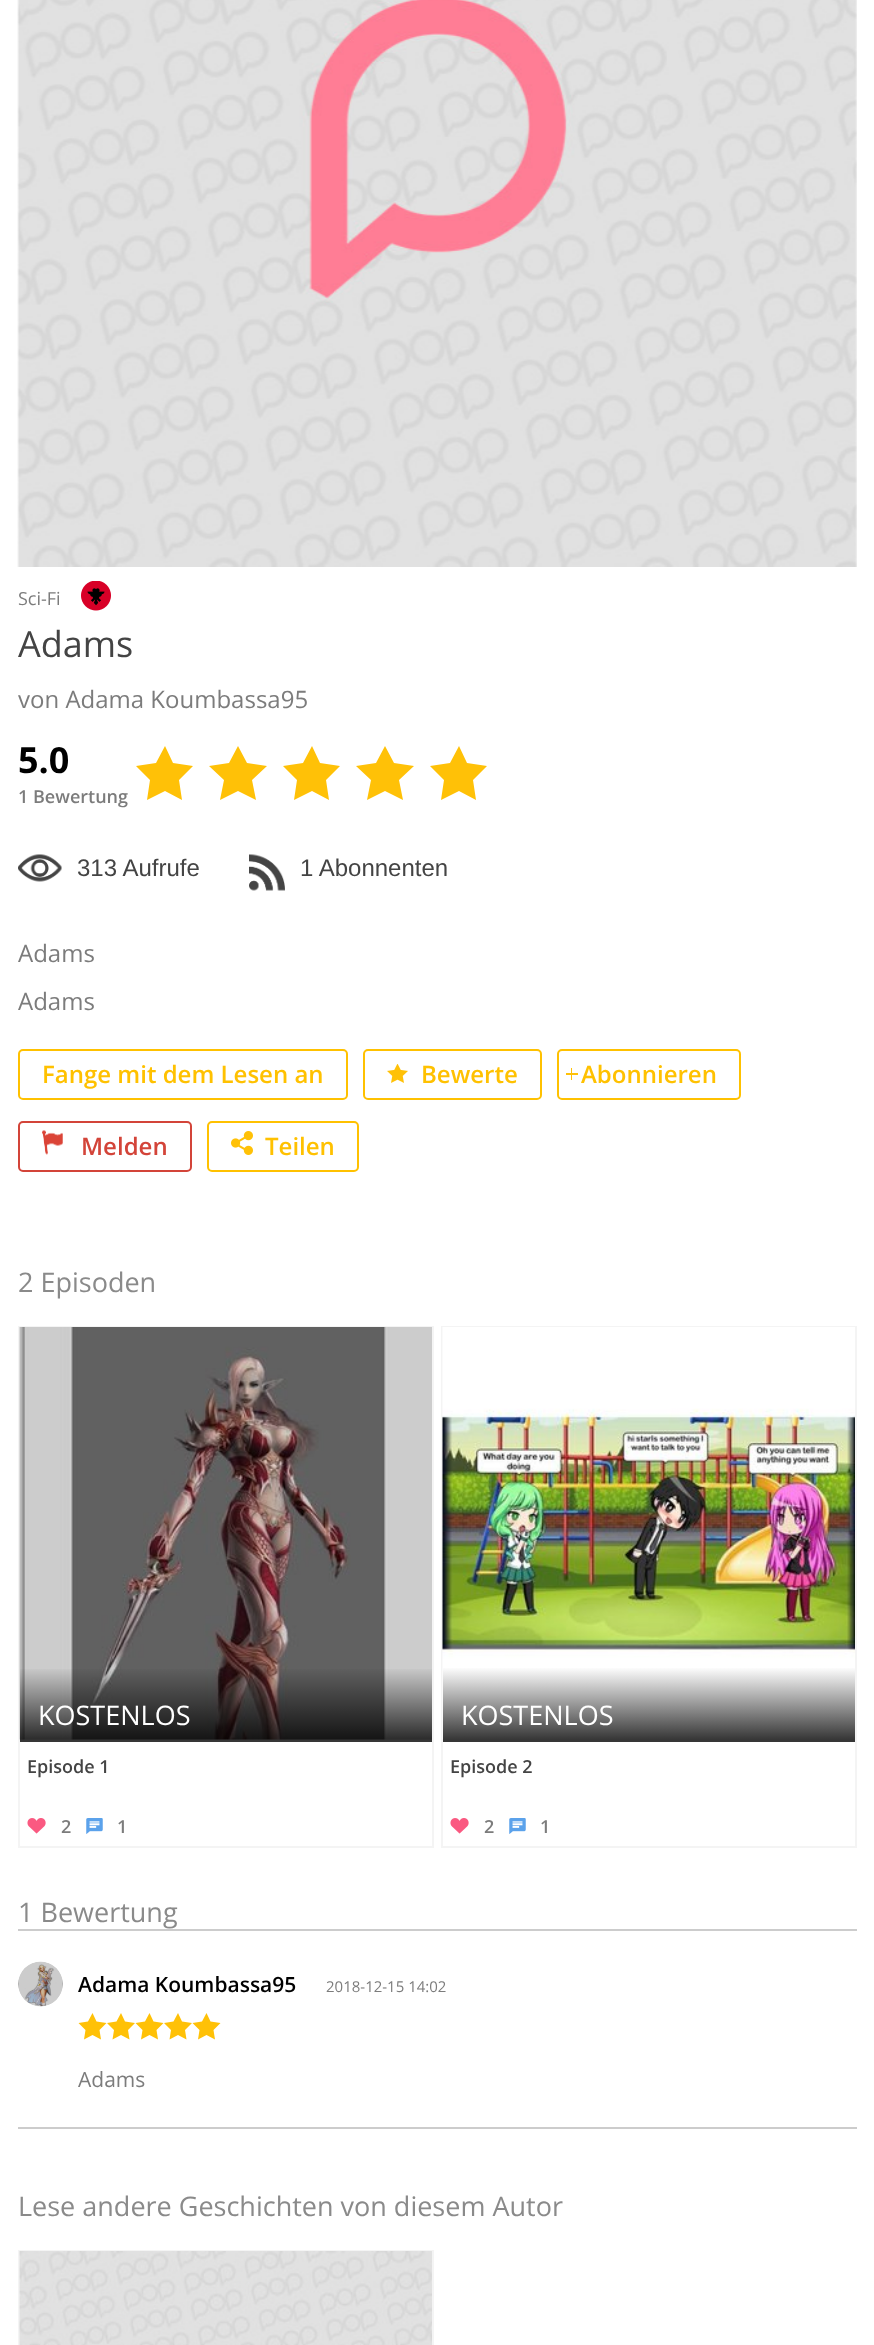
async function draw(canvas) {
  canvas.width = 874
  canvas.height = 2345
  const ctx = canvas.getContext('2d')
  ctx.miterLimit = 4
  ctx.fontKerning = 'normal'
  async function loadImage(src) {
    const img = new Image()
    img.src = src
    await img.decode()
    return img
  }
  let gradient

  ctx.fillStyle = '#fff'
  ctx.fillRect(0, 0, 874, 2345)
  ctx.drawImage(await loadImage('image0.png'), 17, 0, 840, 567)
  ctx.font = '18px Open Sans'
  ctx.fillStyle = '#7c7c7c'
  ctx.fillText('Sci-Fi', 18, 605)
  ctx.drawImage(await loadImage('image1.png'), 81, 581, 30, 30)
  ctx.font = '36px Open Sans'
  ctx.fillStyle = '#444'
  ctx.fillText('Adams', 18, 657)
  ctx.font = '24px Open Sans'
  ctx.fillStyle = '#7c7c7c'
  ctx.fillText('von Adama Koumbassa95', 18, 708)
  ctx.font = 'bold 36px Open Sans'
  ctx.fillStyle = '#000'
  ctx.fillText('5.0', 18, 773)
  ctx.font = '600 18px Open Sans'
  ctx.fillStyle = '#7c7c7c'
  ctx.fillText('1 Bewertung', 18, 803)
  ctx.fillStyle = '#ffc107'
  ctx.beginPath()
  ctx.moveTo(165, 791)
  ctx.lineTo(147, 800)
  ctx.lineTo(150, 780)
  ctx.lineTo(136, 766)
  ctx.lineTo(156, 763)
  ctx.lineTo(165, 746)
  ctx.lineTo(173, 763)
  ctx.lineTo(193, 766)
  ctx.lineTo(179, 780)
  ctx.lineTo(182, 800)
  ctx.closePath()
  ctx.fill('evenodd')
  ctx.beginPath()
  ctx.moveTo(238, 791)
  ctx.lineTo(220, 800)
  ctx.lineTo(224, 780)
  ctx.lineTo(209, 766)
  ctx.lineTo(229, 763)
  ctx.lineTo(238, 746)
  ctx.lineTo(247, 763)
  ctx.lineTo(267, 766)
  ctx.lineTo(252, 780)
  ctx.lineTo(256, 800)
  ctx.closePath()
  ctx.fill('evenodd')
  ctx.beginPath()
  ctx.moveTo(312, 791)
  ctx.lineTo(294, 800)
  ctx.lineTo(297, 780)
  ctx.lineTo(283, 766)
  ctx.lineTo(303, 763)
  ctx.lineTo(312, 746)
  ctx.lineTo(320, 763)
  ctx.lineTo(340, 766)
  ctx.lineTo(326, 780)
  ctx.lineTo(329, 800)
  ctx.closePath()
  ctx.fill('evenodd')
  ctx.beginPath()
  ctx.moveTo(385, 791)
  ctx.lineTo(367, 800)
  ctx.lineTo(371, 780)
  ctx.lineTo(356, 766)
  ctx.lineTo(376, 763)
  ctx.lineTo(385, 746)
  ctx.lineTo(394, 763)
  ctx.lineTo(414, 766)
  ctx.lineTo(399, 780)
  ctx.lineTo(403, 800)
  ctx.closePath()
  ctx.fill('evenodd')
  ctx.beginPath()
  ctx.moveTo(459, 791)
  ctx.lineTo(441, 800)
  ctx.lineTo(444, 780)
  ctx.lineTo(430, 766)
  ctx.lineTo(450, 763)
  ctx.lineTo(459, 746)
  ctx.lineTo(467, 763)
  ctx.lineTo(487, 766)
  ctx.lineTo(473, 780)
  ctx.lineTo(476, 800)
  ctx.closePath()
  ctx.fill('evenodd')
  ctx.drawImage(await loadImage('image2.png'), 18, 854, 44, 28)
  ctx.font = '24px Liberation Sans'
  ctx.fillStyle = '#444'
  ctx.fillText('313 Aufrufe', 77, 876)
  ctx.drawImage(await loadImage('image3.png'), 249, 854, 36, 37)
  ctx.fillText('1 Abonnenten', 300, 876)
  ctx.font = '24px Open Sans'
  ctx.fillStyle = '#7c7c7c'
  ctx.fillText('Adams', 18, 962)
  ctx.fillText('Adams', 18, 1010)
  ctx.beginPath()
  ctx.roundRect(19, 1050, 328, 49, 4)
  ctx.strokeStyle = '#ffc100'
  ctx.lineWidth = 2
  ctx.stroke()
  ctx.font = '600 24px Open Sans'
  ctx.fillStyle = '#ffc100'
  ctx.fillText('Fange mit dem Lesen an', 42, 1083)
  ctx.beginPath()
  ctx.roundRect(364, 1050, 177, 49, 4)
  ctx.stroke()
  ctx.drawImage(await loadImage('image4.png'), 387, 1064, 21, 19)
  ctx.fillText('Bewerte', 421, 1083)
  ctx.fillStyle = '#ffc107'
  ctx.fillRect(571, 1068, 1, 12)
  ctx.fillRect(566, 1073, 12, 2)
  ctx.beginPath()
  ctx.roundRect(558, 1050, 182, 49, 4)
  ctx.stroke()
  ctx.fillStyle = '#ffc100'
  ctx.fillText('Abonnieren', 581, 1083)
  ctx.beginPath()
  ctx.roundRect(19, 1122, 172, 49, 4)
  ctx.strokeStyle = '#d34439'
  ctx.stroke()
  ctx.drawImage(await loadImage('image5.png'), 42, 1130, 21, 25)
  ctx.fillStyle = '#d34439'
  ctx.fillText('Melden', 81, 1155)
  ctx.beginPath()
  ctx.roundRect(208, 1122, 150, 49, 4)
  ctx.strokeStyle = '#ffc100'
  ctx.stroke()
  ctx.drawImage(await loadImage('image6.png'), 231, 1131, 22, 24)
  ctx.fillStyle = '#ffc100'
  ctx.fillText('Teilen', 265, 1155)
  ctx.font = '27px Open Sans'
  ctx.fillStyle = '#8a8a8a'
  ctx.fillText('2 Episoden', 18, 1292)
  ctx.strokeStyle = '#f4f4f4'
  ctx.strokeRect(19, 1327, 414, 520)
  ctx.drawImage(await loadImage('image7.png'), 19, 1327, 413, 413)
  gradient = ctx.createLinearGradient(226, 1667, 226, 1742)
  gradient.addColorStop(0, '#00000000')
  gradient.addColorStop(0.97, '#000000c9')
  ctx.fillStyle = gradient
  ctx.fillRect(20, 1669, 412, 73)
  ctx.fillStyle = '#fff'
  ctx.fillText('KOSTENLOS', 38, 1725)
  ctx.font = '600 18px Open Sans'
  ctx.fillStyle = '#444'
  ctx.fillText('Episode 1', 27, 1773)
  ctx.drawImage(await loadImage('image8.png'), 27, 1818, 19, 16)
  ctx.fillStyle = '#7c7c7c'
  ctx.fillText('2', 61, 1833)
  ctx.drawImage(await loadImage('image9.png'), 86, 1818, 17, 16)
  ctx.fillText('1', 117, 1833)
  ctx.strokeRect(442, 1327, 414, 520)
  ctx.drawImage(await loadImage('image10.png'), 442, 1327, 413, 412)
  gradient = ctx.createLinearGradient(649, 1667, 649, 1742)
  gradient.addColorStop(0, '#fff')
  gradient.addColorStop(0.97, '#363636')
  ctx.fillStyle = gradient
  ctx.fillRect(443, 1668, 412, 74)
  ctx.font = '27px Open Sans'
  ctx.fillStyle = '#fff'
  ctx.fillText('KOSTENLOS', 461, 1725)
  ctx.font = '600 18px Open Sans'
  ctx.fillStyle = '#444'
  ctx.fillText('Episode 2', 450, 1773)
  ctx.drawImage(await loadImage('image8.png'), 450, 1818, 19, 16)
  ctx.fillStyle = '#7c7c7c'
  ctx.fillText('2', 484, 1833)
  ctx.drawImage(await loadImage('image9.png'), 509, 1818, 17, 16)
  ctx.fillText('1', 540, 1833)
  ctx.font = '27px Open Sans'
  ctx.fillStyle = '#8a8a8a'
  ctx.fillText('1 Bewertung', 18, 1922)
  ctx.fillStyle = '#ccc'
  ctx.fillRect(18, 1929, 839, 2)
  ctx.drawImage(await loadImage('image11.png'), 18, 1961, 45, 46)
  ctx.font = '600 21px Open Sans'
  ctx.fillStyle = '#000'
  ctx.fillText('Adama Koumbassa95', 78, 1992)
  ctx.font = '15px Open Sans'
  ctx.fillStyle = '#7c7c7c'
  ctx.fillText('2018-12-15 14:02', 326, 1992)
  ctx.fillStyle = '#ffc107'
  ctx.beginPath()
  ctx.moveTo(92.5, 2035)
  ctx.lineTo(84, 2039.5)
  ctx.lineTo(85.5, 2030)
  ctx.lineTo(78.5, 2023)
  ctx.lineTo(88, 2021.5)
  ctx.lineTo(92.5, 2013)
  ctx.lineTo(96.5, 2021.5)
  ctx.lineTo(106.5, 2023)
  ctx.lineTo(99.5, 2030)
  ctx.lineTo(101, 2039.5)
  ctx.closePath()
  ctx.moveTo(121, 2035)
  ctx.lineTo(112.5, 2039.5)
  ctx.lineTo(114, 2030)
  ctx.lineTo(107, 2023)
  ctx.lineTo(116.5, 2021.5)
  ctx.lineTo(121, 2013)
  ctx.lineTo(125, 2021.5)
  ctx.lineTo(135, 2023)
  ctx.lineTo(128, 2030)
  ctx.lineTo(129.5, 2039.5)
  ctx.closePath()
  ctx.fill('evenodd')
  ctx.beginPath()
  ctx.moveTo(149.5, 2035)
  ctx.lineTo(141, 2039.5)
  ctx.lineTo(142.5, 2030)
  ctx.lineTo(135.5, 2023)
  ctx.lineTo(145, 2021.5)
  ctx.lineTo(149.5, 2013)
  ctx.lineTo(153.5, 2021.5)
  ctx.lineTo(163.5, 2023)
  ctx.lineTo(156.5, 2030)
  ctx.lineTo(158, 2039.5)
  ctx.closePath()
  ctx.moveTo(178, 2035)
  ctx.lineTo(169.5, 2039.5)
  ctx.lineTo(171, 2030)
  ctx.lineTo(164, 2023)
  ctx.lineTo(173.5, 2021.5)
  ctx.lineTo(178, 2013)
  ctx.lineTo(182, 2021.5)
  ctx.lineTo(192, 2023)
  ctx.lineTo(185, 2030)
  ctx.lineTo(186.5, 2039.5)
  ctx.closePath()
  ctx.fill('evenodd')
  ctx.beginPath()
  ctx.moveTo(206.5, 2035)
  ctx.lineTo(198, 2039.5)
  ctx.lineTo(199.5, 2030)
  ctx.lineTo(192.5, 2023)
  ctx.lineTo(202, 2021.5)
  ctx.lineTo(206.5, 2013)
  ctx.lineTo(210.5, 2021.5)
  ctx.lineTo(220.5, 2023)
  ctx.lineTo(213.5, 2030)
  ctx.lineTo(215, 2039.5)
  ctx.closePath()
  ctx.fill('evenodd')
  ctx.font = '21px Open Sans'
  ctx.fillStyle = '#7c7c7c'
  ctx.fillText('Adams', 78, 2087)
  ctx.fillStyle = '#ccc'
  ctx.fillRect(18, 2127, 839, 2)
  ctx.font = '27px Open Sans'
  ctx.fillStyle = '#8a8a8a'
  ctx.fillText('Lese andere Geschichten von diesem Autor', 18, 2216)
  ctx.strokeRect(19, 2251, 414, 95)
  ctx.drawImage(await loadImage('image12.png'), 19, 2251, 413, 94)
}

draw(document.querySelector('canvas'))
